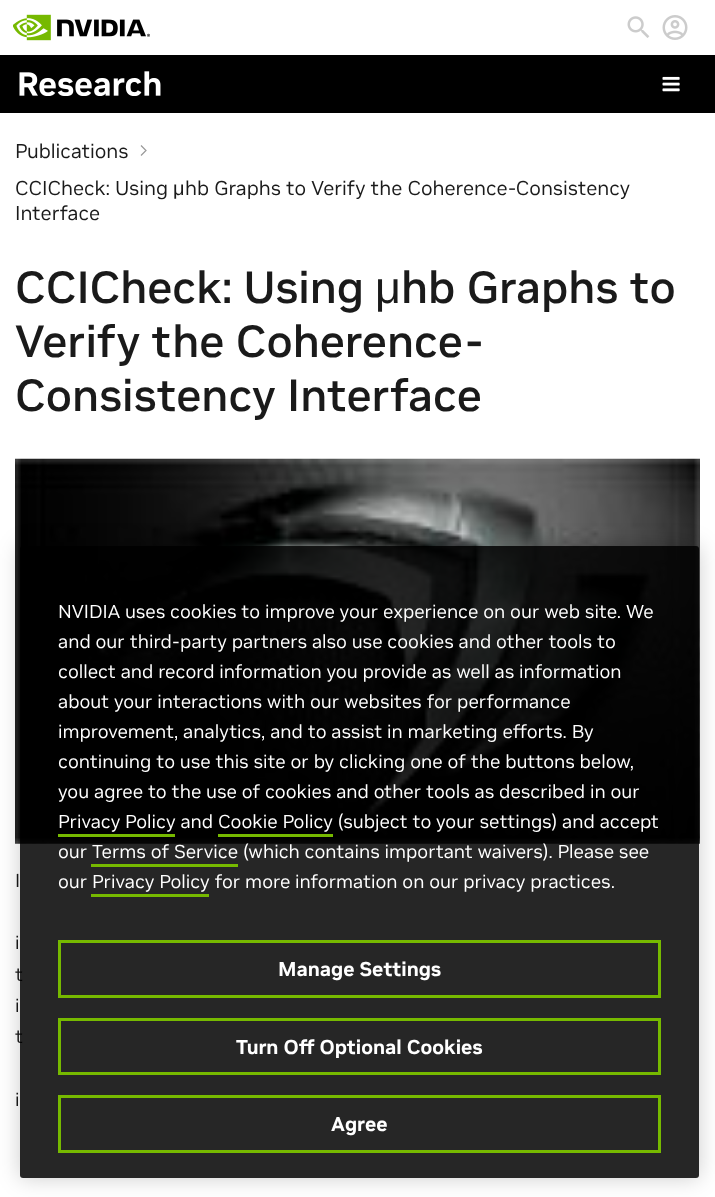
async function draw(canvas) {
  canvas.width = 715
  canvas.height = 1197
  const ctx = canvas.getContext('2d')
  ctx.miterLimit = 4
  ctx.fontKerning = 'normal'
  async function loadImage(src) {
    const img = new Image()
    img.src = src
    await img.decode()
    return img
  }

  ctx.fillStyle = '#fff'
  ctx.fillRect(0, 0, 715, 1197)
  ctx.drawImage(await loadImage('image0.png'), 13, 14, 137, 27)
  ctx.drawImage(await loadImage('image1.png'), 627, 16, 23, 22)
  ctx.drawImage(await loadImage('image2.png'), 662, 15, 26, 25)
  ctx.fillStyle = '#000'
  ctx.fillRect(0, 55, 715, 58)
  ctx.drawImage(await loadImage('image3.png'), 19, 71, 142, 25)
  ctx.drawImage(await loadImage('image4.png'), 662, 76, 18, 16)
  ctx.beginPath()
  ctx.moveTo(141, 155.5)
  ctx.lineTo(146, 150.5)
  ctx.lineTo(141, 145.5)
  ctx.strokeStyle = '#999'
  ctx.lineWidth = 1.2
  ctx.stroke()
  ctx.font = '20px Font'
  ctx.fillStyle = '#1a1a1a'
  ctx.fillText('Publications', 15, 158)
  ctx.fillText('CCICheck: Using', 15, 195)
  ctx.font = '20px Liberation Sans'
  ctx.fillText('μ', 173, 195)
  ctx.font = '20px Font'
  ctx.fillText('hb Graphs to Verify the Coherence-Consistency', 185, 195)
  ctx.fillText('Interface', 15, 220)
  ctx.font = '500 45px Font'
  ctx.fillText('CCICheck: Using', 15, 303)
  ctx.font = '45px Liberation Sans'
  ctx.fillText('μ', 375, 303)
  ctx.font = '500 45px Font'
  ctx.fillText('hb Graphs to', 401, 303)
  ctx.fillText('Verify the Coherence-', 15, 357)
  ctx.fillText('Consistency Interface', 15, 411)
  ctx.drawImage(await loadImage('image5.png'), 15, 458, 685, 386)
  ctx.font = '18.75px Font'
  ctx.fillText('I', 15, 887)
  ctx.fillText('i', 15, 949)
  ctx.fillText('t', 15, 981)
  ctx.fillText('i', 15, 1012)
  ctx.fillText('t', 15, 1043)
  ctx.fillText('i', 15, 1106)
  ctx.save()
  ctx.beginPath()
  ctx.moveTo(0, 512)
  ctx.lineTo(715, 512)
  ctx.lineTo(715, 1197)
  ctx.lineTo(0, 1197)
  ctx.closePath()
  ctx.moveTo(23, 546)
  ctx.lineTo(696, 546)
  ctx.bezierCurveTo(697.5, 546, 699, 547.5, 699, 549)
  ctx.lineTo(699, 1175)
  ctx.bezierCurveTo(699, 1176.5, 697.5, 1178, 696, 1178)
  ctx.lineTo(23, 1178)
  ctx.bezierCurveTo(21.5, 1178, 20, 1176.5, 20, 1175)
  ctx.lineTo(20, 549)
  ctx.bezierCurveTo(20, 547.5, 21.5, 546, 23, 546)
  ctx.closePath()
  ctx.clip('evenodd')
  ctx.fillStyle = '#00000033'
  ctx.filter = 'blur(11px)'
  ctx.beginPath()
  ctx.roundRect(20, 546, 679, 632, 3)
  ctx.fill()
  ctx.filter = 'none'
  ctx.restore()
  ctx.fillStyle = '#000000d9'
  ctx.beginPath()
  ctx.roundRect(20, 546, 679, 632, 3)
  ctx.fill()
  ctx.fillStyle = '#fff'
  ctx.fillText('NVIDIA uses cookies to improve your experience on our web site. We', 58, 618)
  ctx.fillText('and our third-party partners also use cookies and other tools to', 58, 648)
  ctx.fillText('collect and record information you provide as well as information', 58, 678)
  ctx.fillText('about your interactions with our websites for performance', 58, 708)
  ctx.fillText('improvement, analytics, and to assist in marketing efforts. By', 58, 738)
  ctx.fillText('continuing to use this site or by clicking one of the buttons below,', 58, 768)
  ctx.fillText('you agree to the use of cookies and other tools as described in our', 58, 798)
  ctx.fillText('Privacy Policy and Cookie Policy (subject to your settings) and accept', 58, 828)
  ctx.fillStyle = '#76b900'
  ctx.fillRect(58, 834, 117, 3)
  ctx.fillRect(218, 834, 115, 3)
  ctx.fillStyle = '#fff'
  ctx.fillText('our Terms of Service (which contains important waivers). Please see', 58, 858)
  ctx.fillStyle = '#76b900'
  ctx.fillRect(91, 864, 147, 3)
  ctx.fillStyle = '#fff'
  ctx.fillText('our Privacy Policy for more information on our privacy practices.', 58, 888)
  ctx.fillStyle = '#76b900'
  ctx.fillRect(91, 894, 118, 3)
  ctx.strokeStyle = '#76b900'
  ctx.lineWidth = 3
  ctx.strokeRect(59.5, 941.5, 600, 55)
  ctx.font = 'bold 20px Font'
  ctx.fillStyle = '#fff'
  ctx.fillText('Manage Settings', 278, 976)
  ctx.strokeRect(59.5, 1019.5, 600, 54)
  ctx.fillText('Turn Off Optional Cookies', 236, 1054)
  ctx.strokeRect(59.5, 1096.5, 600, 55)
  ctx.fillText('Agree', 331, 1131)
}

draw(document.querySelector('canvas'))
